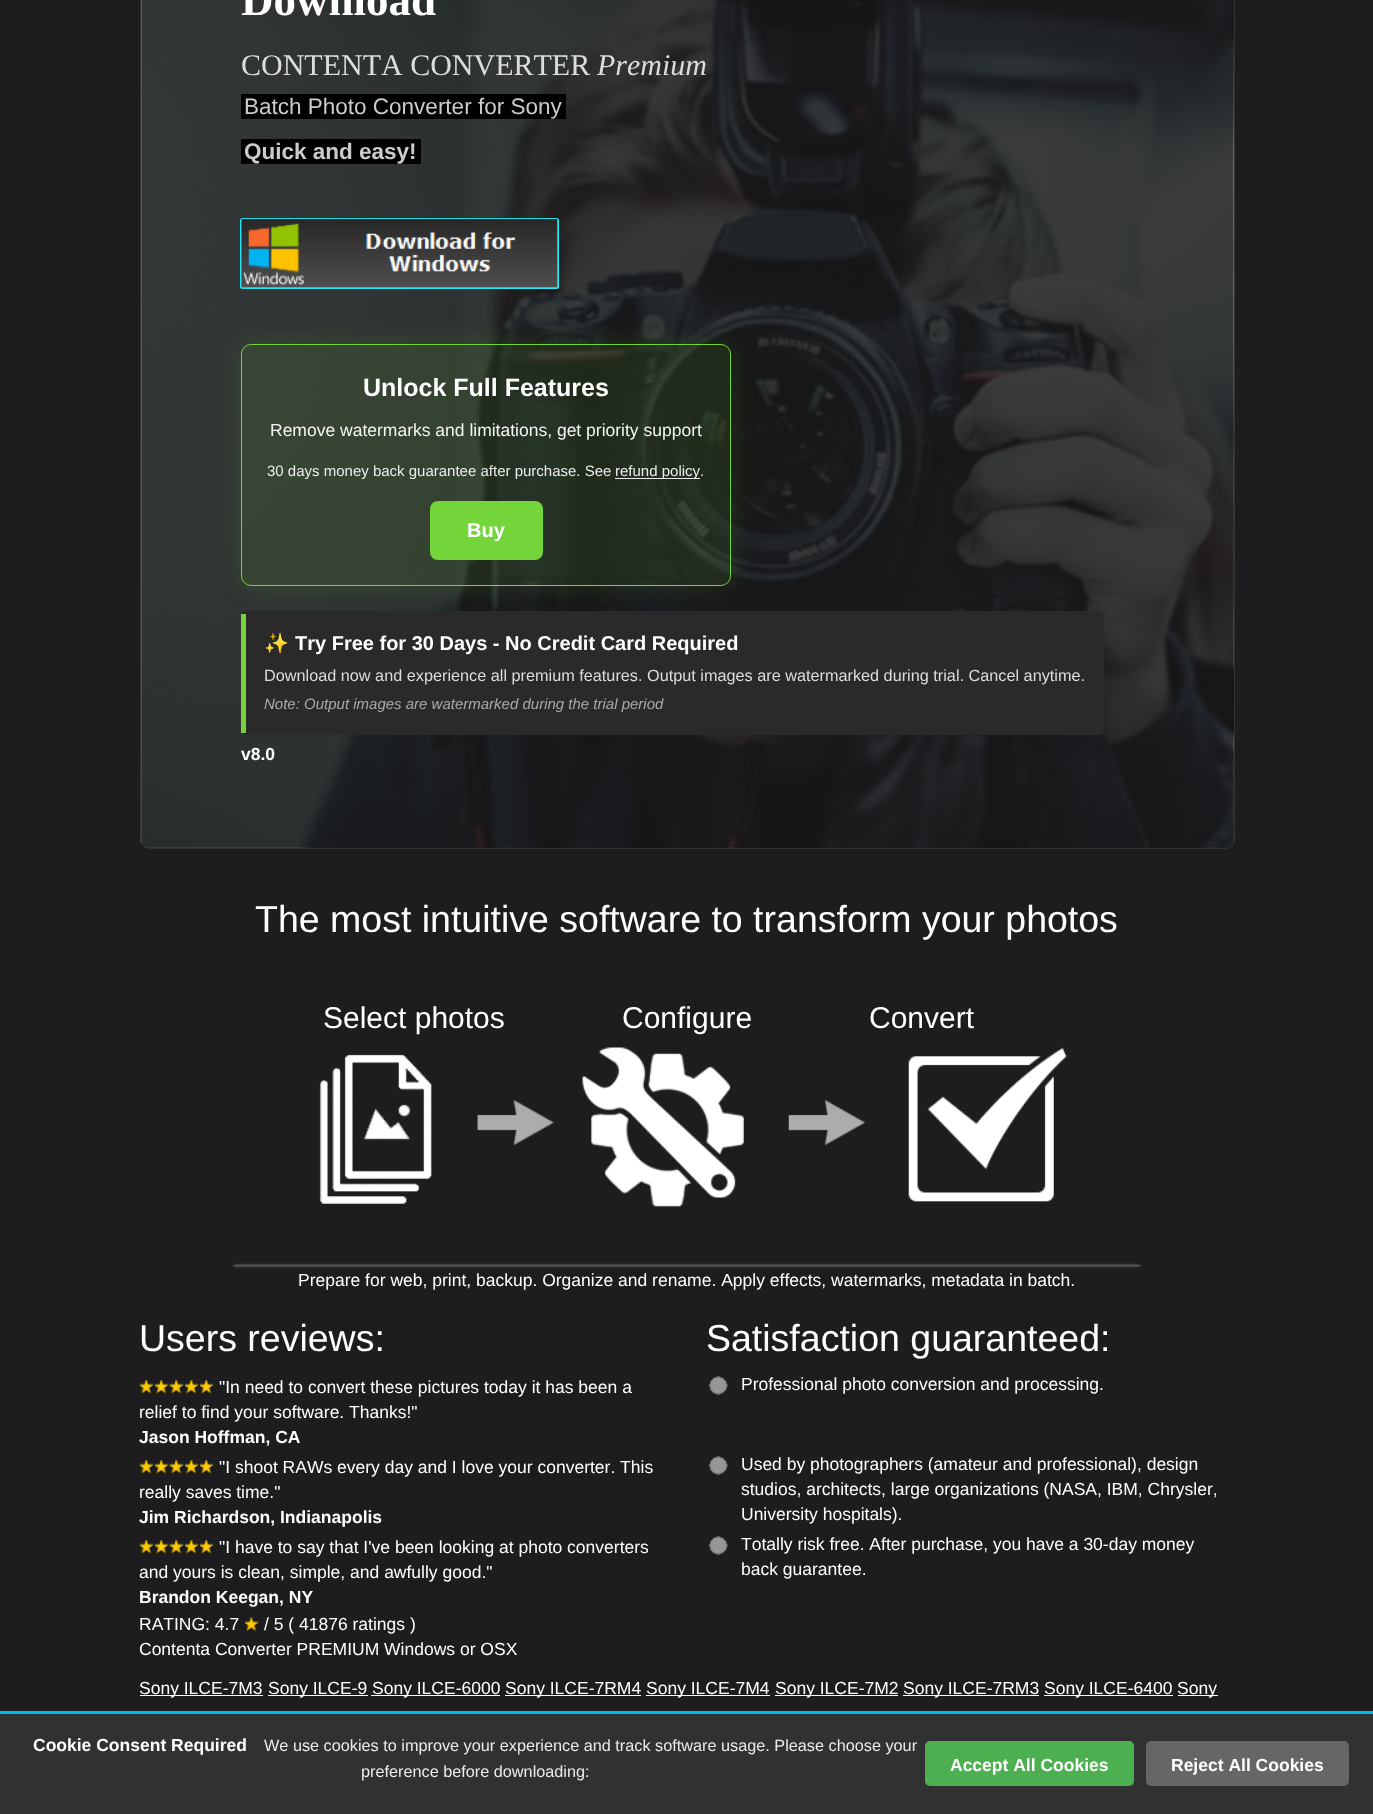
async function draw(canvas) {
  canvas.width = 1373
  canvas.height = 1814
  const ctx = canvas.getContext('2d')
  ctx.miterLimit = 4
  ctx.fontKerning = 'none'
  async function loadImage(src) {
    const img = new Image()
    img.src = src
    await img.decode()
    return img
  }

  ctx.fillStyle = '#1d1d1f'
  ctx.fillRect(0, 0, 1373, 1814)
  ctx.drawImage(await loadImage('image0.png'), 140, 0, 1095, 848)
  ctx.beginPath()
  ctx.roundRect(140.5, -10.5, 1094, 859, 9.5)
  ctx.strokeStyle = '#333'
  ctx.stroke()
  ctx.font = 'bold 45px Liberation Serif'
  ctx.fillStyle = '#fff'
  ctx.fillText('Download', 241, 15)
  ctx.font = '30px Liberation Serif'
  ctx.fillStyle = '#ddd'
  ctx.fillText('CONTENTA CONVERTER', 241, 75)
  ctx.font = 'italic 30px Liberation Serif'
  ctx.fillText('Premium', 597, 75)
  ctx.fillStyle = '#000'
  ctx.fillRect(241, 94, 325, 25)
  ctx.font = '22.5px Liberation Sans'
  ctx.fillStyle = '#ccc'
  ctx.fillText('Batch Photo Converter for Sony', 244, 114)
  ctx.fillStyle = '#000'
  ctx.fillRect(241, 139, 180, 25)
  ctx.font = 'bold 22.5px Liberation Sans'
  ctx.fillStyle = '#ccc'
  ctx.fillText('Quick and easy!', 244, 159)
  ctx.fillStyle = '#23e7f5'
  ctx.filter = 'blur(0.5px)'
  ctx.beginPath()
  ctx.roundRect(240, 218, 319, 71, 2.5)
  ctx.fill()
  ctx.filter = 'none'
  ctx.drawImage(await loadImage('image1.png'), 241, 218, 317, 70)
  ctx.save()
  ctx.beginPath()
  ctx.moveTo(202, 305)
  ctx.lineTo(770, 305)
  ctx.lineTo(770, 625)
  ctx.lineTo(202, 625)
  ctx.closePath()
  ctx.moveTo(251, 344)
  ctx.lineTo(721, 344)
  ctx.bezierCurveTo(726.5, 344, 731, 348.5, 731, 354)
  ctx.lineTo(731, 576)
  ctx.bezierCurveTo(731, 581.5, 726.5, 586, 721, 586)
  ctx.lineTo(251, 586)
  ctx.bezierCurveTo(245.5, 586, 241, 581.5, 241, 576)
  ctx.lineTo(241, 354)
  ctx.bezierCurveTo(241, 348.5, 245.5, 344, 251, 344)
  ctx.closePath()
  ctx.clip('evenodd')
  ctx.fillStyle = '#74d53b26'
  ctx.filter = 'blur(12.5px)'
  ctx.beginPath()
  ctx.roundRect(241, 344, 490, 242, 10)
  ctx.fill()
  ctx.filter = 'none'
  ctx.restore()
  ctx.fillStyle = '#74d53b1a'
  ctx.beginPath()
  ctx.roundRect(241.5, 344.5, 489, 241, 9.5)
  ctx.fill()
  ctx.strokeStyle = '#74d53b'
  ctx.stroke()
  ctx.font = 'bold 25px Liberation Sans'
  ctx.fillStyle = '#fff'
  ctx.fillText('Unlock Full Features', 363, 396)
  ctx.font = '17.5px Liberation Sans'
  ctx.fillStyle = '#f4f5f4'
  ctx.fillText('Remove watermarks and limitations, get priority support', 270, 436)
  ctx.font = '15px Liberation Sans'
  ctx.fillStyle = '#eaecea'
  ctx.fillText('30 days money back guarantee after purchase. See', 267, 476)
  ctx.fillStyle = '#ffffffe6'
  ctx.fillRect(615, 478, 85, 1)
  ctx.fillStyle = '#eaecea'
  ctx.fillText('refund policy', 615, 476)
  ctx.fillText('.', 700, 476)
  ctx.fillStyle = '#74d53b'
  ctx.beginPath()
  ctx.roundRect(430, 501, 113, 59, 8)
  ctx.fill()
  ctx.font = 'bold 20px Liberation Sans'
  ctx.fillStyle = '#fff'
  ctx.fillText('Buy', 467, 537)
  ctx.fillStyle = '#2a2a2a'
  ctx.beginPath()
  ctx.roundRect(241, 611, 863, 124, 5)
  ctx.fill()
  ctx.fillStyle = '#74d53b'
  ctx.fillRect(241, 614, 5, 119)
  ctx.font = 'bold 20px Noto Color Emoji'
  ctx.fillStyle = '#fff'
  ctx.fillText('✨', 264, 650)
  ctx.font = 'bold 20px Liberation Sans'
  ctx.fillText('Try Free for 30 Days - No Credit Card Required', 295, 650)
  ctx.font = '16.25px Liberation Sans'
  ctx.fillStyle = '#ddd'
  ctx.fillText('Download now and experience all premium features. Output images are watermarked during trial. Cancel anytime.', 264, 681)
  ctx.font = 'italic 15px Liberation Sans'
  ctx.fillStyle = '#aaa'
  ctx.fillText('Note: Output images are watermarked during the trial period', 264, 709)
  ctx.font = 'bold 17.5px Liberation Sans'
  ctx.fillStyle = '#fff'
  ctx.fillText('v8.0', 241, 760)
  ctx.font = '37.5px Liberation Sans'
  ctx.fillText('The most intuitive software to transform your photos', 255, 932)
  ctx.font = '30px Liberation Sans'
  ctx.fillText('Select photos', 323, 1028)
  ctx.fillText('Configure', 622, 1028)
  ctx.fillText('Convert', 869, 1028)
  ctx.drawImage(await loadImage('image2.png'), 232, 1047, 910, 221)
  ctx.font = '17.5px Liberation Sans'
  ctx.fillText('Prepare for web, print, backup. Organize and rename. Apply effects, watermarks, metadata in batch.', 298, 1286)
  ctx.font = '37.5px Liberation Sans'
  ctx.fillText('Users reviews:', 139, 1351)
  ctx.drawImage(await loadImage('image3.png'), 140, 1380, 14, 14)
  ctx.drawImage(await loadImage('image3.png'), 155, 1380, 14, 14)
  ctx.drawImage(await loadImage('image3.png'), 170, 1380, 14, 14)
  ctx.drawImage(await loadImage('image3.png'), 185, 1380, 14, 14)
  ctx.drawImage(await loadImage('image3.png'), 200, 1380, 14, 14)
  ctx.font = '17.5px Liberation Sans'
  ctx.fillText('"In need to convert these pictures today it has been a', 219, 1393)
  ctx.fillText('relief to find your software. Thanks!"', 139, 1418)
  ctx.font = 'bold 17.5px Liberation Sans'
  ctx.fillText('Jason Hoffman, CA', 139, 1443)
  ctx.drawImage(await loadImage('image3.png'), 140, 1460, 14, 14)
  ctx.drawImage(await loadImage('image3.png'), 155, 1460, 14, 14)
  ctx.drawImage(await loadImage('image3.png'), 170, 1460, 14, 14)
  ctx.drawImage(await loadImage('image3.png'), 185, 1460, 14, 14)
  ctx.drawImage(await loadImage('image3.png'), 200, 1460, 14, 14)
  ctx.font = '17.5px Liberation Sans'
  ctx.fillText('"I shoot RAWs every day and I love your converter. This', 219, 1473)
  ctx.fillText('really saves time."', 139, 1498)
  ctx.font = 'bold 17.5px Liberation Sans'
  ctx.fillText('Jim Richardson, Indianapolis', 139, 1523)
  ctx.drawImage(await loadImage('image3.png'), 140, 1540, 14, 14)
  ctx.drawImage(await loadImage('image3.png'), 155, 1540, 14, 14)
  ctx.drawImage(await loadImage('image3.png'), 170, 1540, 14, 14)
  ctx.drawImage(await loadImage('image3.png'), 185, 1540, 14, 14)
  ctx.drawImage(await loadImage('image3.png'), 200, 1540, 14, 14)
  ctx.font = '17.5px Liberation Sans'
  ctx.fillText('"I have to say that I\'ve been looking at photo converters', 219, 1553)
  ctx.fillText('and yours is clean, simple, and awfully good."', 139, 1578)
  ctx.font = 'bold 17.5px Liberation Sans'
  ctx.fillText('Brandon Keegan, NY', 139, 1603)
  ctx.font = '17.5px Liberation Sans'
  ctx.fillText('RATING: 4.7', 139, 1630)
  ctx.drawImage(await loadImage('image4.png'), 245, 1617, 14, 15)
  ctx.fillText('/ 5 ( 41876 ratings )', 264, 1630)
  ctx.fillText('Contenta Converter PREMIUM Windows or OSX', 139, 1655)
  ctx.font = '37.5px Liberation Sans'
  ctx.fillText('Satisfaction guaranteed:', 706, 1351)
  ctx.drawImage(await loadImage('image5.png'), 708, 1376, 20, 20)
  ctx.font = '17.5px Liberation Sans'
  ctx.fillText('Professional photo conversion and processing.', 741, 1390)
  ctx.drawImage(await loadImage('image5.png'), 708, 1456, 20, 20)
  ctx.fillText('Used by photographers (amateur and professional), design', 741, 1470)
  ctx.fillText('studios, architects, large organizations (NASA, IBM, Chrysler,', 741, 1495)
  ctx.fillText('University hospitals).', 741, 1520)
  ctx.drawImage(await loadImage('image5.png'), 708, 1536, 20, 20)
  ctx.fillText('Totally risk free. After purchase, you have a 30-day money', 741, 1550)
  ctx.fillText('back guarantee.', 741, 1575)
  ctx.fillRect(140, 1695, 123, 1)
  ctx.fillText('Sony ILCE-7M3', 139, 1694)
  ctx.fillRect(268, 1695, 100, 1)
  ctx.fillText('Sony ILCE-9', 268, 1694)
  ctx.fillRect(371, 1695, 129, 1)
  ctx.fillText('Sony ILCE-6000', 372, 1694)
  ctx.fillRect(505, 1695, 136, 1)
  ctx.fillText('Sony ILCE-7RM4', 505, 1694)
  ctx.fillRect(646, 1695, 124, 1)
  ctx.fillText('Sony ILCE-7M4', 646, 1694)
  ctx.fillRect(775, 1695, 123, 1)
  ctx.fillText('Sony ILCE-7M2', 775, 1694)
  ctx.fillRect(903, 1695, 136, 1)
  ctx.fillText('Sony ILCE-7RM3', 903, 1694)
  ctx.fillRect(1044, 1695, 129, 1)
  ctx.fillText('Sony ILCE-6400', 1044, 1694)
  ctx.fillRect(1178, 1695, 40, 1)
  ctx.fillText('Sony', 1177, 1694)
  ctx.fillRect(140, 1720, 83, 1)
  ctx.fillRect(228, 1720, 136, 1)
  ctx.fillRect(369, 1720, 114, 1)
  ctx.fillRect(488, 1720, 128, 1)
  ctx.fillRect(621, 1720, 155, 1)
  ctx.fillRect(781, 1720, 100, 1)
  ctx.fillRect(885, 1720, 136, 1)
  ctx.fillRect(1026, 1720, 135, 1)
  ctx.fillRect(1166, 1720, 40, 1)
  ctx.fillRect(140, 1745, 83, 1)
  ctx.fillRect(228, 1745, 148, 1)
  ctx.fillRect(381, 1745, 112, 1)
  ctx.fillRect(498, 1745, 191, 1)
  ctx.fillRect(694, 1745, 135, 1)
  ctx.fillRect(834, 1745, 99, 1)
  ctx.fillRect(1133, 1745, 14, 1)
  ctx.fillRect(140, 1770, 131, 1)
  ctx.fillRect(275, 1770, 129, 1)
  ctx.fillRect(409, 1770, 112, 1)
  ctx.fillRect(525, 1770, 201, 1)
  ctx.fillRect(731, 1770, 125, 1)
  ctx.fillRect(861, 1770, 64, 1)
  ctx.fillRect(1134, 1770, 12, 1)
  ctx.fillRect(140, 1795, 40, 1)
  ctx.fillRect(185, 1795, 125, 1)
  ctx.fillRect(315, 1795, 166, 1)
  ctx.fillRect(486, 1795, 109, 1)
  ctx.fillRect(600, 1795, 165, 1)
  ctx.fillRect(770, 1795, 95, 1)
  ctx.fillRect(870, 1795, 129, 1)
  ctx.fillRect(1004, 1795, 122, 1)
  ctx.fillRect(1131, 1795, 98, 1)
  ctx.fillStyle = '#323232fa'
  ctx.fillRect(0, 1714, 1373, 100)
  ctx.fillStyle = '#00baf2'
  ctx.fillRect(0, 1711, 1373, 3)
  ctx.font = 'bold 17.5px Liberation Sans'
  ctx.fillStyle = '#fff'
  ctx.fillText('Cookie Consent Required', 33, 1751)
  ctx.font = '16.25px Liberation Sans'
  ctx.fillStyle = '#eaecea'
  ctx.fillText('We use cookies to improve your experience and track software usage. Please choose your', 264, 1751)
  ctx.fillText('preference before downloading:', 361, 1777)
  ctx.fillStyle = '#4caf50'
  ctx.beginPath()
  ctx.roundRect(925, 1741, 209, 45, 5)
  ctx.fill()
  ctx.font = 'bold 17.5px Liberation Sans'
  ctx.fillStyle = '#fff'
  ctx.fillText('Accept All Cookies', 950, 1771)
  ctx.fillStyle = '#666'
  ctx.beginPath()
  ctx.roundRect(1146, 1741, 203, 45, 5)
  ctx.fill()
  ctx.fillStyle = '#fff'
  ctx.fillText('Reject All Cookies', 1171, 1771)
}

draw(document.querySelector('canvas'))
